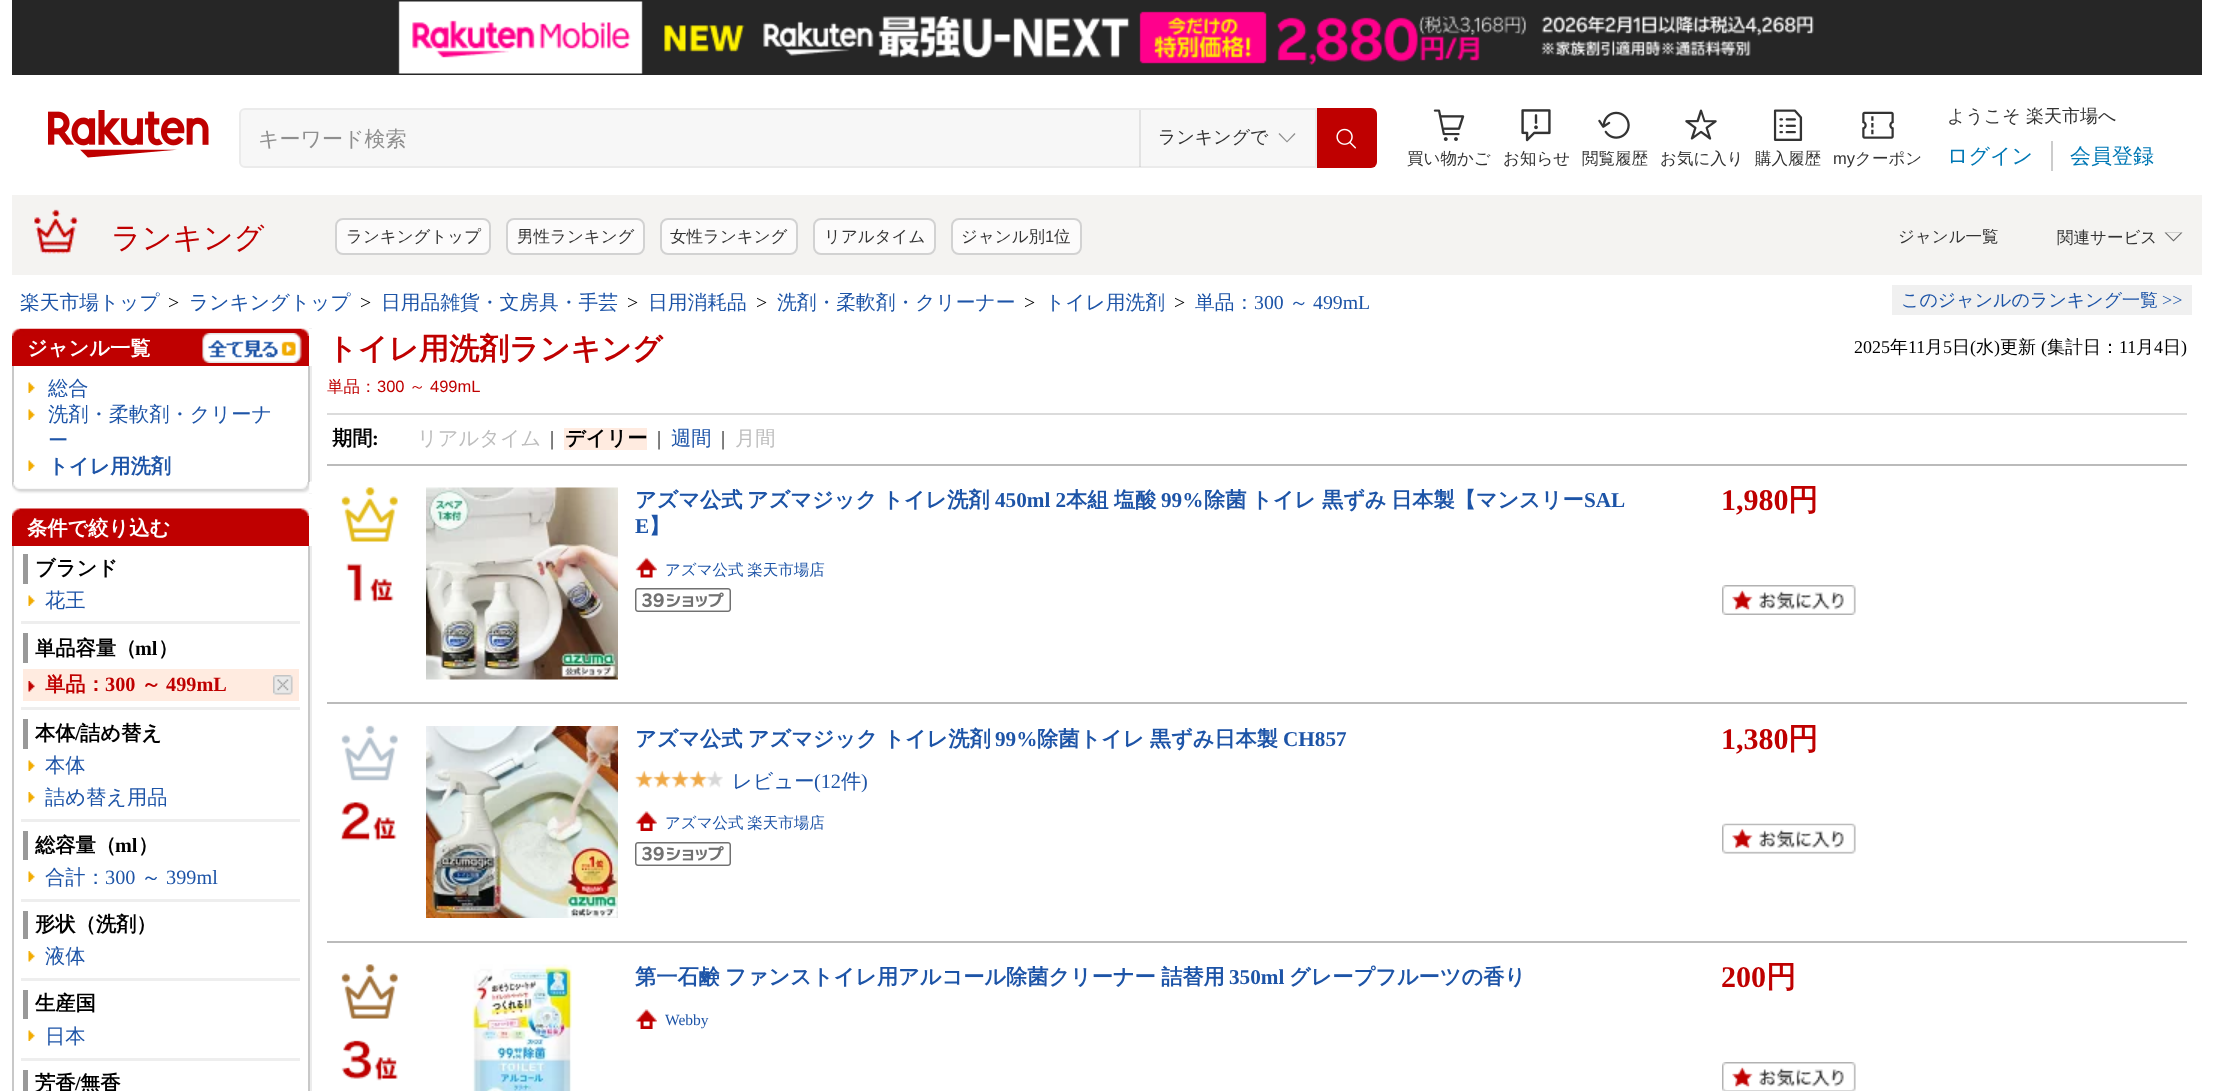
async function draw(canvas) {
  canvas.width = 2213
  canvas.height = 1091
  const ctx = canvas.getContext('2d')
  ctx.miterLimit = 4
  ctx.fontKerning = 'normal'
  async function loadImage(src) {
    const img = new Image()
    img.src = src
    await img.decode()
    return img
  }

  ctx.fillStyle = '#fff'
  ctx.fillRect(0, 0, 2213, 1091)
  ctx.drawImage(await loadImage('image0.png'), 12, 0, 2190, 75)
  ctx.drawImage(await loadImage('image1.png'), 48, 110, 161, 48)
  ctx.fillStyle = '#f7f7f7'
  ctx.beginPath()
  ctx.roundRect(240, 109, 1076, 58, [5, 0, 0, 5])
  ctx.fill()
  ctx.strokeStyle = '#ebebeb'
  ctx.lineWidth = 2
  ctx.stroke()
  ctx.font = '500 21px WenQuanYi Zen Hei'
  ctx.fillStyle = '#8f8f8f'
  ctx.fillText('キーワード検索', 258, 146)
  ctx.fillStyle = '#00000014'
  ctx.fillRect(1139, 110, 2, 57)
  ctx.font = '500 18px WenQuanYi Zen Hei'
  ctx.fillStyle = '#333'
  ctx.fillText('ランキングで', 1158, 143)
  ctx.fillStyle = '#8f8f8f'
  ctx.beginPath()
  ctx.moveTo(1295.5, 134)
  ctx.lineTo(1294.5, 133)
  ctx.lineTo(1287, 141)
  ctx.lineTo(1279.5, 133)
  ctx.lineTo(1278.5, 134)
  ctx.lineTo(1287, 142.5)
  ctx.closePath()
  ctx.fill()
  ctx.fillStyle = '#bf0000'
  ctx.beginPath()
  ctx.roundRect(1317, 108, 60, 60, [0, 6, 6, 0])
  ctx.fill()
  ctx.drawImage(await loadImage('image2.png'), 1336, 128, 20, 21)
  ctx.fillStyle = '#333'
  ctx.fillText('ようこそ 楽天市場へ', 1947, 122)
  ctx.fillStyle = '#ccc'
  ctx.fillRect(2051, 141, 2, 30)
  ctx.font = '500 21px WenQuanYi Zen Hei'
  ctx.fillStyle = '#0078b5'
  ctx.fillText('ログイン', 1947, 163)
  ctx.fillText('会員登録', 2070, 163)
  ctx.drawImage(await loadImage('image3.png'), 1433, 109, 32, 32)
  ctx.font = '500 16.5px WenQuanYi Zen Hei'
  ctx.fillStyle = '#333'
  ctx.fillText('買い物かご', 1407, 164)
  ctx.drawImage(await loadImage('image4.png'), 1521, 109, 30, 33)
  ctx.fillText('お知らせ', 1503, 164)
  ctx.drawImage(await loadImage('image5.png'), 1598, 111, 32, 28)
  ctx.fillText('閲覧履歴', 1582, 164)
  ctx.drawImage(await loadImage('image6.png'), 1685, 109, 32, 31)
  ctx.fillText('お気に入り', 1660, 164)
  ctx.drawImage(await loadImage('image7.png'), 1773, 109, 30, 32)
  ctx.fillText('購入履歴', 1755, 164)
  ctx.drawImage(await loadImage('image8.png'), 1862, 111, 32, 28)
  ctx.font = '16.5px Liberation Sans'
  ctx.fillText('my', 1833, 164)
  ctx.font = '500 16.5px WenQuanYi Zen Hei'
  ctx.fillText('クーポン', 1855, 164)
  ctx.fillStyle = '#f4f3f1'
  ctx.fillRect(12, 195, 2190, 80)
  ctx.drawImage(await loadImage('image9.png'), 33, 209, 46, 45)
  ctx.font = '500 30px WenQuanYi Zen Hei'
  ctx.fillStyle = '#bf0000'
  ctx.fillText('ランキング', 111, 248)
  ctx.fillStyle = '#fcfbfb'
  ctx.beginPath()
  ctx.roundRect(336, 219, 154, 35, 7)
  ctx.fill()
  ctx.strokeStyle = '#d2d2d2'
  ctx.stroke()
  ctx.font = '500 16.5px WenQuanYi Zen Hei'
  ctx.fillStyle = '#333'
  ctx.fillText('ランキングトップ', 346, 242)
  ctx.fillStyle = '#fcfbfb'
  ctx.beginPath()
  ctx.roundRect(507, 219, 137, 35, 7)
  ctx.fill()
  ctx.stroke()
  ctx.fillStyle = '#333'
  ctx.fillText('男性ランキング', 517, 242)
  ctx.fillStyle = '#fcfbfb'
  ctx.beginPath()
  ctx.roundRect(661, 219, 136, 35, 7)
  ctx.fill()
  ctx.stroke()
  ctx.fillStyle = '#333'
  ctx.fillText('女性ランキング', 670, 242)
  ctx.fillStyle = '#fcfbfb'
  ctx.beginPath()
  ctx.roundRect(814, 219, 121, 35, 7)
  ctx.fill()
  ctx.stroke()
  ctx.fillStyle = '#333'
  ctx.fillText('リアルタイム', 824, 242)
  ctx.fillStyle = '#fcfbfb'
  ctx.beginPath()
  ctx.roundRect(952, 219, 129, 35, 7)
  ctx.fill()
  ctx.stroke()
  ctx.fillStyle = '#333'
  ctx.fillText('ジャンル別', 961, 242)
  ctx.font = '16.5px Liberation Sans'
  ctx.fillText('1', 1045, 242)
  ctx.font = '500 16.5px WenQuanYi Zen Hei'
  ctx.fillText('位', 1054, 242)
  ctx.fillText('ジャンル一覧', 1898, 242)
  ctx.fillText('関連サービス', 2057, 243)
  ctx.fillStyle = '#666'
  ctx.beginPath()
  ctx.moveTo(2164.5, 232.5)
  ctx.lineTo(2182.5, 232.5)
  ctx.lineTo(2173.5, 241.5)
  ctx.closePath()
  ctx.fill()
  ctx.fillStyle = '#f4f3f1'
  ctx.beginPath()
  ctx.moveTo(2166, 232.5)
  ctx.lineTo(2181, 232.5)
  ctx.lineTo(2173.5, 240)
  ctx.closePath()
  ctx.fill()
  ctx.font = '500 19.75px WenQuanYi Zen Hei'
  ctx.fillStyle = '#1d54a7'
  ctx.fillText('楽天市場トップ', 20, 309)
  ctx.font = '19.75px Liberation Serif'
  ctx.fillStyle = '#000'
  ctx.fillText('>', 168, 309)
  ctx.font = '500 19.75px WenQuanYi Zen Hei'
  ctx.fillStyle = '#1d54a7'
  ctx.fillText('ランキングトップ', 189, 309)
  ctx.font = '19.75px Liberation Serif'
  ctx.fillStyle = '#000'
  ctx.fillText('>', 360, 309)
  ctx.font = '500 19.75px WenQuanYi Zen Hei'
  ctx.fillStyle = '#1d54a7'
  ctx.fillText('日用品雑貨・文房具・手芸', 381, 309)
  ctx.font = '19.75px Liberation Serif'
  ctx.fillStyle = '#000'
  ctx.fillText('>', 627, 309)
  ctx.font = '500 19.75px WenQuanYi Zen Hei'
  ctx.fillStyle = '#1d54a7'
  ctx.fillText('日用消耗品', 648, 309)
  ctx.font = '19.75px Liberation Serif'
  ctx.fillStyle = '#000'
  ctx.fillText('>', 756, 309)
  ctx.font = '500 19.75px WenQuanYi Zen Hei'
  ctx.fillStyle = '#1d54a7'
  ctx.fillText('洗剤・柔軟剤・クリーナー', 777, 309)
  ctx.font = '19.75px Liberation Serif'
  ctx.fillStyle = '#000'
  ctx.fillText('>', 1024, 309)
  ctx.font = '500 19.75px WenQuanYi Zen Hei'
  ctx.fillStyle = '#1d54a7'
  ctx.fillText('トイレ用洗剤', 1045, 309)
  ctx.font = '19.75px Liberation Serif'
  ctx.fillStyle = '#000'
  ctx.fillText('>', 1174, 309)
  ctx.font = '500 19.75px WenQuanYi Zen Hei'
  ctx.fillStyle = '#1d54a7'
  ctx.fillText('単品：', 1195, 309)
  ctx.font = '19.75px Liberation Serif'
  ctx.fillText('300', 1254, 309)
  ctx.font = '500 19.75px WenQuanYi Zen Hei'
  ctx.fillText('～', 1289, 309)
  ctx.font = '19.75px Liberation Serif'
  ctx.fillText('499mL', 1313, 309)
  ctx.fillStyle = '#f0f0f0'
  ctx.fillRect(1892, 285, 300, 30)
  ctx.font = '500 18px WenQuanYi Zen Hei'
  ctx.fillStyle = '#1d54a7'
  ctx.fillText('このジャンルのランキング一覧', 1901, 306)
  ctx.font = '18px Liberation Serif'
  ctx.fillText('>>', 2162, 306)
  ctx.fillStyle = '#ececec'
  ctx.fillRect(309, 328, 3, 166)
  ctx.drawImage(await loadImage('image10.png'), 12, 481, 300, 13)
  ctx.drawImage(await loadImage('image11.png'), 12, 328, 300, 8)
  ctx.fillStyle = '#fff'
  ctx.fillRect(309, 329, 3, 37)
  ctx.fillStyle = '#bf0000'
  ctx.fillRect(12, 336, 297, 30)
  ctx.font = 'bold 20.25px WenQuanYi Zen Hei'
  ctx.fillStyle = '#fff'
  ctx.fillText('ジャンル一覧', 27, 355)
  ctx.drawImage(await loadImage('image12.png'), 202, 333, 100, 30)
  ctx.fillRect(307, 481, 1, 1)
  ctx.fillStyle = '#c8c8c8'
  ctx.fillRect(308, 366, 2, 116)
  ctx.fillRect(12, 366, 2, 116)
  ctx.drawImage(await loadImage('image13.png'), 28, 382, 7, 11)
  ctx.font = '500 20.25px WenQuanYi Zen Hei'
  ctx.fillStyle = '#1d54a7'
  ctx.fillText('総合', 48, 395)
  ctx.drawImage(await loadImage('image13.png'), 28, 409, 7, 11)
  ctx.fillText('洗剤・柔軟剤・クリーナ', 48, 421)
  ctx.fillText('ー', 48, 447)
  ctx.drawImage(await loadImage('image13.png'), 28, 460, 7, 11)
  ctx.font = 'bold 20.25px WenQuanYi Zen Hei'
  ctx.fillText('トイレ用洗剤', 48, 473)
  ctx.fillStyle = '#ececec'
  ctx.fillRect(309, 508, 3, 583)
  ctx.drawImage(await loadImage('image14.png'), 12, 508, 300, 8)
  ctx.fillStyle = '#fff'
  ctx.fillRect(309, 509, 3, 37)
  ctx.fillStyle = '#bf0000'
  ctx.fillRect(12, 516, 297, 30)
  ctx.fillStyle = '#fff'
  ctx.fillText('条件で絞り込む', 27, 535)
  ctx.fillStyle = '#c8c8c8'
  ctx.fillRect(308, 546, 2, 545)
  ctx.fillRect(12, 546, 2, 545)
  ctx.fillStyle = '#999'
  ctx.fillRect(23, 554, 5, 30)
  ctx.fillStyle = '#000'
  ctx.fillText('ブランド', 35, 575)
  ctx.drawImage(await loadImage('image13.png'), 28, 595, 7, 11)
  ctx.font = '500 20.25px WenQuanYi Zen Hei'
  ctx.fillStyle = '#1d54a7'
  ctx.fillText('花王', 45, 607)
  ctx.fillStyle = '#eee'
  ctx.fillRect(21, 621, 279, 3)
  ctx.fillStyle = '#999'
  ctx.fillRect(23, 633, 5, 30)
  ctx.font = 'bold 20.25px WenQuanYi Zen Hei'
  ctx.fillStyle = '#000'
  ctx.fillText('単品容量（', 35, 655)
  ctx.font = 'bold 20.25px Liberation Serif'
  ctx.fillText('ml', 135, 655)
  ctx.font = 'bold 20.25px WenQuanYi Zen Hei'
  ctx.fillText('）', 158, 655)
  ctx.fillStyle = '#ffebe0'
  ctx.fillRect(23, 669, 276, 32)
  ctx.drawImage(await loadImage('image15.png'), 28, 681, 7, 11)
  ctx.drawImage(await loadImage('image16.png'), 273, 675, 20, 20)
  ctx.fillStyle = '#bf0000'
  ctx.fillText('単品：', 45, 691)
  ctx.font = 'bold 20.25px Liberation Serif'
  ctx.fillText('300', 105, 691)
  ctx.font = 'bold 20.25px WenQuanYi Zen Hei'
  ctx.fillText('～', 141, 691)
  ctx.font = 'bold 20.25px Liberation Serif'
  ctx.fillText('499mL', 166, 691)
  ctx.fillStyle = '#eee'
  ctx.fillRect(21, 707, 279, 3)
  ctx.fillStyle = '#999'
  ctx.fillRect(23, 719, 5, 30)
  ctx.font = 'bold 20.25px WenQuanYi Zen Hei'
  ctx.fillStyle = '#000'
  ctx.fillText('本体', 35, 740)
  ctx.font = 'bold 20.25px Liberation Serif'
  ctx.fillText('/', 75, 740)
  ctx.font = 'bold 20.25px WenQuanYi Zen Hei'
  ctx.fillText('詰め替え', 80, 740)
  ctx.drawImage(await loadImage('image13.png'), 28, 760, 7, 11)
  ctx.font = '500 20.25px WenQuanYi Zen Hei'
  ctx.fillStyle = '#1d54a7'
  ctx.fillText('本体', 45, 772)
  ctx.drawImage(await loadImage('image17.png'), 28, 792, 7, 11)
  ctx.fillText('詰め替え用品', 45, 804)
  ctx.fillStyle = '#eee'
  ctx.fillRect(21, 819, 279, 3)
  ctx.fillStyle = '#999'
  ctx.fillRect(23, 831, 5, 29)
  ctx.font = 'bold 20.25px WenQuanYi Zen Hei'
  ctx.fillStyle = '#000'
  ctx.fillText('総容量（', 35, 852)
  ctx.font = 'bold 20.25px Liberation Serif'
  ctx.fillText('ml', 115, 852)
  ctx.font = 'bold 20.25px WenQuanYi Zen Hei'
  ctx.fillText('）', 138, 852)
  ctx.drawImage(await loadImage('image13.png'), 28, 871, 7, 11)
  ctx.font = '500 20.25px WenQuanYi Zen Hei'
  ctx.fillStyle = '#1d54a7'
  ctx.fillText('合計：', 45, 884)
  ctx.font = '20.25px Liberation Serif'
  ctx.fillText('300', 105, 884)
  ctx.font = '500 20.25px WenQuanYi Zen Hei'
  ctx.fillText('～', 141, 884)
  ctx.font = '20.25px Liberation Serif'
  ctx.fillText('399ml', 166, 884)
  ctx.fillStyle = '#eee'
  ctx.fillRect(21, 899, 279, 3)
  ctx.fillStyle = '#999'
  ctx.fillRect(23, 911, 5, 28)
  ctx.font = 'bold 20.25px WenQuanYi Zen Hei'
  ctx.fillStyle = '#000'
  ctx.fillText('形状（洗剤）', 35, 931)
  ctx.drawImage(await loadImage('image17.png'), 28, 951, 7, 11)
  ctx.font = '500 20.25px WenQuanYi Zen Hei'
  ctx.fillStyle = '#1d54a7'
  ctx.fillText('液体', 45, 963)
  ctx.fillStyle = '#eee'
  ctx.fillRect(21, 978, 279, 3)
  ctx.fillStyle = '#999'
  ctx.fillRect(23, 990, 5, 29)
  ctx.font = 'bold 20.25px WenQuanYi Zen Hei'
  ctx.fillStyle = '#000'
  ctx.fillText('生産国', 35, 1010)
  ctx.drawImage(await loadImage('image13.png'), 28, 1030, 7, 11)
  ctx.font = '500 20.25px WenQuanYi Zen Hei'
  ctx.fillStyle = '#1d54a7'
  ctx.fillText('日本', 45, 1043)
  ctx.fillStyle = '#eee'
  ctx.fillRect(21, 1058, 279, 3)
  ctx.fillStyle = '#999'
  ctx.fillRect(23, 1070, 5, 21)
  ctx.font = 'bold 20.25px WenQuanYi Zen Hei'
  ctx.fillStyle = '#000'
  ctx.fillText('芳香', 35, 1090)
  ctx.font = 'bold 20.25px Liberation Serif'
  ctx.fillText('/', 75, 1090)
  ctx.font = 'bold 20.25px WenQuanYi Zen Hei'
  ctx.fillText('無香', 80, 1090)
  ctx.fillStyle = '#dbdbdb'
  ctx.fillRect(327, 413, 1860, 2)
  ctx.font = 'bold 30px WenQuanYi Zen Hei'
  ctx.fillStyle = '#bf0000'
  ctx.fillText('トイレ用洗剤ランキング', 327, 359)
  ctx.font = '500 16.5px WenQuanYi Zen Hei'
  ctx.fillText('単品：', 327, 392)
  ctx.font = '16.5px Liberation Sans'
  ctx.fillText('300', 377, 392)
  ctx.font = '500 16.5px WenQuanYi Zen Hei'
  ctx.fillText('～', 409, 392)
  ctx.font = '16.5px Liberation Sans'
  ctx.fillText('499mL', 430, 392)
  ctx.font = '18px Liberation Serif'
  ctx.fillStyle = '#000'
  ctx.fillText('2025', 1854, 353)
  ctx.font = '500 18px WenQuanYi Zen Hei'
  ctx.fillText('年', 1890, 353)
  ctx.font = '18px Liberation Serif'
  ctx.fillText('11', 1908, 353)
  ctx.font = '500 18px WenQuanYi Zen Hei'
  ctx.fillText('月', 1925, 353)
  ctx.font = '18px Liberation Serif'
  ctx.fillText('5', 1943, 353)
  ctx.font = '500 18px WenQuanYi Zen Hei'
  ctx.fillText('日', 1952, 353)
  ctx.font = '18px Liberation Serif'
  ctx.fillText('(', 1970, 353)
  ctx.font = '500 18px WenQuanYi Zen Hei'
  ctx.fillText('水', 1976, 353)
  ctx.font = '18px Liberation Serif'
  ctx.fillText(')', 1994, 353)
  ctx.font = '500 18px WenQuanYi Zen Hei'
  ctx.fillText('更新', 2000, 353)
  ctx.font = '18px Liberation Serif'
  ctx.fillText('(', 2041, 353)
  ctx.font = '500 18px WenQuanYi Zen Hei'
  ctx.fillText('集計日：', 2047, 353)
  ctx.font = '18px Liberation Serif'
  ctx.fillText('11', 2119, 353)
  ctx.font = '500 18px WenQuanYi Zen Hei'
  ctx.fillText('月', 2136, 353)
  ctx.font = '18px Liberation Serif'
  ctx.fillText('4', 2154, 353)
  ctx.font = '500 18px WenQuanYi Zen Hei'
  ctx.fillText('日', 2163, 353)
  ctx.font = '18px Liberation Serif'
  ctx.fillText(')', 2181, 353)
  ctx.font = 'bold 20.25px WenQuanYi Zen Hei'
  ctx.fillText('期間', 332, 445)
  ctx.font = 'bold 20.25px Liberation Serif'
  ctx.fillText(':', 372, 445)
  ctx.font = '500 20.25px WenQuanYi Zen Hei'
  ctx.fillStyle = '#bebebe'
  ctx.fillText('リアルタイム', 417, 445)
  ctx.font = '20.25px Liberation Serif'
  ctx.fillStyle = '#000'
  ctx.fillText('|', 550, 445)
  ctx.fillStyle = '#ffebe0'
  ctx.fillRect(564, 428, 83, 22)
  ctx.font = 'bold 20.25px WenQuanYi Zen Hei'
  ctx.fillStyle = '#000'
  ctx.fillText('デイリー', 565, 445)
  ctx.font = '20.25px Liberation Serif'
  ctx.fillText('|', 657, 445)
  ctx.font = '500 20.25px WenQuanYi Zen Hei'
  ctx.fillStyle = '#1d54a7'
  ctx.fillText('週間', 671, 445)
  ctx.font = '20.25px Liberation Serif'
  ctx.fillStyle = '#000'
  ctx.fillText('|', 721, 445)
  ctx.font = '500 20.25px WenQuanYi Zen Hei'
  ctx.fillStyle = '#bebebe'
  ctx.fillText('月間', 735, 445)
  ctx.fillStyle = '#bbb'
  ctx.fillRect(327, 464, 1860, 2)
  ctx.fillRect(327, 702, 1860, 2)
  ctx.drawImage(await loadImage('image18.png'), 341, 487, 57, 115)
  ctx.drawImage(await loadImage('image19.png'), 426, 487, 192, 193)
  ctx.font = 'bold 21.2px WenQuanYi Zen Hei'
  ctx.fillStyle = '#1d54a7'
  ctx.fillText('アズマ公式', 635, 507)
  ctx.fillText('アズマジック', 747, 507)
  ctx.fillText('トイレ洗剤', 882, 507)
  ctx.font = 'bold 21.2px Liberation Serif'
  ctx.fillText('450ml 2', 995, 507)
  ctx.font = 'bold 21.2px WenQuanYi Zen Hei'
  ctx.fillText('本組', 1066, 507)
  ctx.fillText('塩酸', 1114, 507)
  ctx.font = 'bold 21.2px Liberation Serif'
  ctx.fillText('99%', 1161, 507)
  ctx.font = 'bold 21.2px WenQuanYi Zen Hei'
  ctx.fillText('除菌', 1204, 507)
  ctx.fillText('トイレ', 1251, 507)
  ctx.fillText('黒ずみ', 1322, 507)
  ctx.fillText('日本製【マンスリー', 1391, 507)
  ctx.font = 'bold 21.2px Liberation Serif'
  ctx.fillText('SAL', 1584, 507)
  ctx.fillText('E', 635, 533)
  ctx.font = 'bold 21.2px WenQuanYi Zen Hei'
  ctx.fillText('】', 649, 533)
  ctx.drawImage(await loadImage('image20.png'), 635, 557, 22, 21)
  ctx.wordSpacing = '-1px'
  ctx.font = '500 15.5px WenQuanYi Zen Hei'
  ctx.fillText('アズマ公式 楽天市場店', 665, 575)
  ctx.drawImage(await loadImage('image21.png'), 635, 588, 96, 24)
  ctx.wordSpacing = '0px'
  ctx.font = 'bold 30px Liberation Serif'
  ctx.fillStyle = '#bf0000'
  ctx.fillText('1,980', 1721, 510)
  ctx.font = 'bold 30px WenQuanYi Zen Hei'
  ctx.fillText('円', 1788, 510)
  ctx.drawImage(await loadImage('image22.png'), 1722, 585, 134, 30)
  ctx.fillStyle = '#bbb'
  ctx.fillRect(327, 941, 1860, 2)
  ctx.drawImage(await loadImage('image23.png'), 340, 725, 58, 116)
  ctx.drawImage(await loadImage('image24.png'), 426, 726, 192, 192)
  ctx.wordSpacing = '-1px'
  ctx.font = 'bold 21.2px WenQuanYi Zen Hei'
  ctx.fillStyle = '#1d54a7'
  ctx.fillText('アズマ公式 アズマジック トイレ洗剤', 635, 746)
  ctx.wordSpacing = '0px'
  ctx.font = 'bold 21.2px Liberation Serif'
  ctx.fillText('99%', 995, 746)
  ctx.wordSpacing = '-1px'
  ctx.font = 'bold 21.2px WenQuanYi Zen Hei'
  ctx.fillText('除菌トイレ 黒ずみ日本製', 1037, 746)
  ctx.wordSpacing = '0px'
  ctx.font = 'bold 21.2px Liberation Serif'
  ctx.fillText('CH857', 1283, 746)
  ctx.drawImage(await loadImage('image25.png'), 634, 770, 19, 18)
  ctx.drawImage(await loadImage('image26.png'), 652, 770, 19, 18)
  ctx.drawImage(await loadImage('image26.png'), 670, 770, 19, 18)
  ctx.drawImage(await loadImage('image26.png'), 688, 770, 19, 18)
  ctx.drawImage(await loadImage('image27.png'), 706, 771, 17, 17)
  ctx.font = '500 20.25px WenQuanYi Zen Hei'
  ctx.fillText('レビュー', 732, 788)
  ctx.font = '20.25px Liberation Serif'
  ctx.fillText('(12', 814, 788)
  ctx.font = '500 20.25px WenQuanYi Zen Hei'
  ctx.fillText('件', 841, 788)
  ctx.font = '20.25px Liberation Serif'
  ctx.fillText(')', 861, 788)
  ctx.drawImage(await loadImage('image28.png'), 635, 811, 22, 20)
  ctx.wordSpacing = '-1px'
  ctx.font = '500 15.5px WenQuanYi Zen Hei'
  ctx.fillText('アズマ公式 楽天市場店', 665, 828)
  ctx.drawImage(await loadImage('image29.png'), 635, 842, 96, 24)
  ctx.wordSpacing = '0px'
  ctx.font = 'bold 30px Liberation Serif'
  ctx.fillStyle = '#bf0000'
  ctx.fillText('1,380', 1721, 749)
  ctx.font = 'bold 30px WenQuanYi Zen Hei'
  ctx.fillText('円', 1788, 749)
  ctx.drawImage(await loadImage('image30.png'), 1722, 823, 134, 31)
  ctx.drawImage(await loadImage('image31.png'), 341, 964, 57, 117)
  ctx.drawImage(await loadImage('image32.png'), 472, 964, 100, 127)
  ctx.wordSpacing = '-1px'
  ctx.font = 'bold 21.2px WenQuanYi Zen Hei'
  ctx.fillStyle = '#1d54a7'
  ctx.fillText('第一石鹸 ファンストイレ用アルコール除菌クリーナー 詰替用', 635, 984)
  ctx.wordSpacing = '0px'
  ctx.font = 'bold 21.2px Liberation Serif'
  ctx.fillText('350ml', 1229, 984)
  ctx.font = 'bold 21.2px WenQuanYi Zen Hei'
  ctx.fillText('グレープフルーツの香り', 1289, 984)
  ctx.drawImage(await loadImage('image28.png'), 635, 1009, 22, 20)
  ctx.font = '15.5px Liberation Serif'
  ctx.fillText('Webby', 665, 1025)
  ctx.font = 'bold 30px Liberation Serif'
  ctx.fillStyle = '#bf0000'
  ctx.fillText('200', 1721, 987)
  ctx.font = 'bold 30px WenQuanYi Zen Hei'
  ctx.fillText('円', 1766, 987)
  ctx.drawImage(await loadImage('image33.png'), 1722, 1062, 134, 29)
}

draw(document.querySelector('canvas'))
